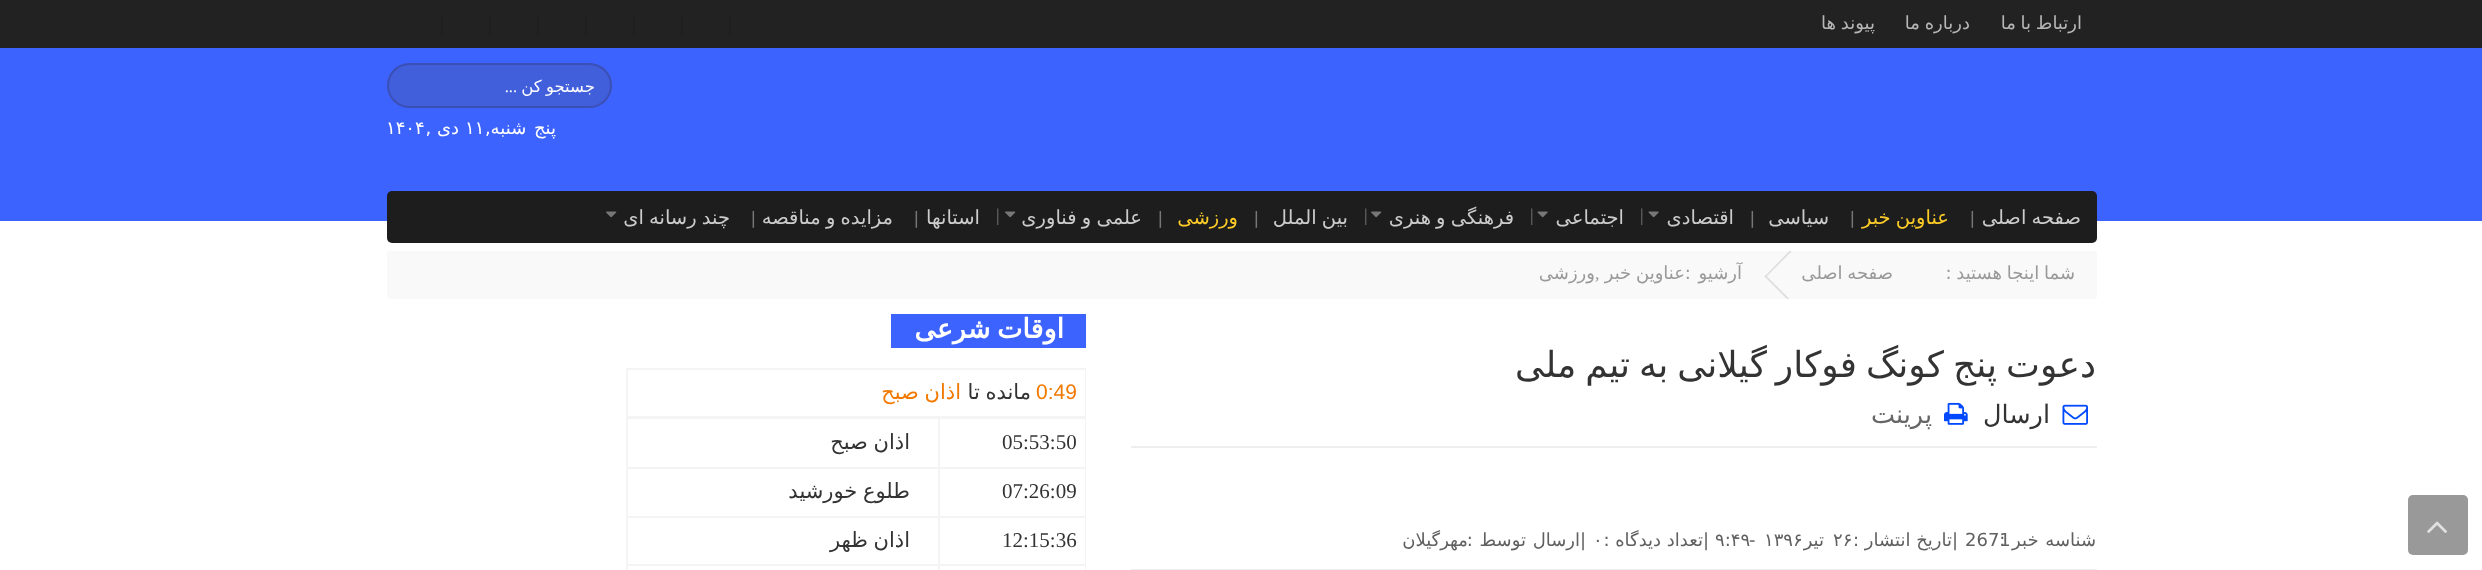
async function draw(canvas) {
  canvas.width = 2482
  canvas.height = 570
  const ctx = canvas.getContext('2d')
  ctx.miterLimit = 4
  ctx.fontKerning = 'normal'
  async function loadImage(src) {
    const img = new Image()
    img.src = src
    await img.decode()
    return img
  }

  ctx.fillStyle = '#fff'
  ctx.fillRect(0, 0, 2482, 570)
  ctx.fillStyle = '#222'
  ctx.fillRect(0, 0, 2482, 48)
  ctx.wordSpacing = '-1px'
  ctx.direction = 'rtl'
  ctx.font = '18px DejaVu Sans'
  ctx.fillStyle = '#b7b7b7'
  ctx.fillText('ارتباط با ما', 2082, 29)
  ctx.fillText('درباره ما', 1970, 29)
  ctx.fillText('پیوند ها', 1875, 29)
  ctx.fillStyle = '#1f1f1f'
  ctx.fillRect(729, 15, 2, 20)
  ctx.fillRect(681, 15, 2, 20)
  ctx.fillRect(633, 15, 2, 20)
  ctx.fillRect(585, 15, 2, 20)
  ctx.fillRect(537, 15, 2, 20)
  ctx.fillRect(489, 15, 2, 20)
  ctx.fillRect(441, 15, 2, 20)
  ctx.fillStyle = '#3d63ff'
  ctx.fillRect(0, 48, 2482, 173)
  ctx.fillStyle = '#415edb'
  ctx.beginPath()
  ctx.roundRect(387, 63, 225, 45, 22.5)
  ctx.fill()
  ctx.beginPath()
  ctx.roundRect(388, 64, 223, 43, 21.5)
  ctx.strokeStyle = '#241b1b33'
  ctx.lineWidth = 2
  ctx.stroke()
  ctx.font = '16.5px DejaVu Sans'
  ctx.fillStyle = '#fff'
  ctx.fillText('جستجو کن', 595, 92)
  ctx.wordSpacing = '0px'
  ctx.font = '16.5px Liberation Serif'
  ctx.fillText('...', 517, 92)
  ctx.wordSpacing = '2px'
  ctx.font = '18px DejaVu Sans'
  ctx.fillText('پنج شنبه,', 556, 134)
  ctx.wordSpacing = '0px'
  ctx.direction = 'ltr'
  ctx.fillText('۱۱', 465, 134)
  ctx.direction = 'rtl'
  ctx.fillText('دی ,', 459, 134)
  ctx.direction = 'ltr'
  ctx.fillText('۱۴۰۴', 386, 134)
  ctx.fillStyle = '#1d1d1d'
  ctx.beginPath()
  ctx.roundRect(387, 191, 1710, 52, 5)
  ctx.fill()
  ctx.wordSpacing = '-1px'
  ctx.direction = 'rtl'
  ctx.font = '19.5px DejaVu Sans'
  ctx.fillStyle = '#ccc'
  ctx.fillText('صفحه اصلی', 2081, 224)
  ctx.wordSpacing = '0px'
  ctx.direction = 'ltr'
  ctx.font = '18px Liberation Sans'
  ctx.fillStyle = '#777'
  ctx.fillText('|', 1970, 224)
  ctx.wordSpacing = '-1px'
  ctx.direction = 'rtl'
  ctx.font = '19.5px DejaVu Sans'
  ctx.fillStyle = '#fccb27'
  ctx.fillText('عناوین خبر', 1949, 224)
  ctx.wordSpacing = '0px'
  ctx.direction = 'ltr'
  ctx.font = '18px Liberation Sans'
  ctx.fillStyle = '#777'
  ctx.fillText('|', 1850, 224)
  ctx.direction = 'rtl'
  ctx.font = '19.5px DejaVu Sans'
  ctx.fillStyle = '#ccc'
  ctx.fillText('سیاسی', 1829, 224)
  ctx.direction = 'ltr'
  ctx.font = '18px Liberation Sans'
  ctx.fillStyle = '#777'
  ctx.fillText('|', 1750, 224)
  ctx.direction = 'rtl'
  ctx.font = '19.5px DejaVu Sans'
  ctx.fillStyle = '#ccc'
  ctx.fillText('اقتصادی', 1734, 224)
  ctx.drawImage(await loadImage('image0.png'), 1648, 211, 11, 7)
  ctx.direction = 'ltr'
  ctx.font = '18px Liberation Serif'
  ctx.fillStyle = '#777'
  ctx.fillText('|', 1640, 221)
  ctx.direction = 'rtl'
  ctx.font = '19.5px DejaVu Sans'
  ctx.fillStyle = '#ccc'
  ctx.fillText('اجتماعی', 1624, 224)
  ctx.drawImage(await loadImage('image0.png'), 1537, 211, 11, 7)
  ctx.direction = 'ltr'
  ctx.font = '18px Liberation Serif'
  ctx.fillStyle = '#777'
  ctx.fillText('|', 1530, 221)
  ctx.wordSpacing = '-1px'
  ctx.direction = 'rtl'
  ctx.font = '19.5px DejaVu Sans'
  ctx.fillStyle = '#ccc'
  ctx.fillText('فرهنگی و هنری', 1514, 224)
  ctx.drawImage(await loadImage('image1.png'), 1371, 211, 11, 7)
  ctx.wordSpacing = '0px'
  ctx.direction = 'ltr'
  ctx.font = '18px Liberation Serif'
  ctx.fillStyle = '#777'
  ctx.fillText('|', 1364, 221)
  ctx.wordSpacing = '-1px'
  ctx.direction = 'rtl'
  ctx.font = '19.5px DejaVu Sans'
  ctx.fillStyle = '#ccc'
  ctx.fillText('بین الملل', 1348, 224)
  ctx.wordSpacing = '0px'
  ctx.direction = 'ltr'
  ctx.font = '18px Liberation Sans'
  ctx.fillStyle = '#777'
  ctx.fillText('|', 1254, 224)
  ctx.direction = 'rtl'
  ctx.font = '19.5px DejaVu Sans'
  ctx.fillStyle = '#fccb27'
  ctx.fillText('ورزشی', 1238, 224)
  ctx.direction = 'ltr'
  ctx.font = '18px Liberation Sans'
  ctx.fillStyle = '#777'
  ctx.fillText('|', 1158, 224)
  ctx.wordSpacing = '-1px'
  ctx.direction = 'rtl'
  ctx.font = '19.5px DejaVu Sans'
  ctx.fillStyle = '#ccc'
  ctx.fillText('علمی و فناوری', 1142, 224)
  ctx.drawImage(await loadImage('image1.png'), 1005, 211, 11, 7)
  ctx.wordSpacing = '0px'
  ctx.direction = 'ltr'
  ctx.font = '18px Liberation Serif'
  ctx.fillStyle = '#777'
  ctx.fillText('|', 996, 221)
  ctx.direction = 'rtl'
  ctx.font = '19.5px DejaVu Sans'
  ctx.fillStyle = '#ccc'
  ctx.fillText('استانها', 980, 224)
  ctx.direction = 'ltr'
  ctx.font = '18px Liberation Sans'
  ctx.fillStyle = '#777'
  ctx.fillText('|', 914, 224)
  ctx.wordSpacing = '-1px'
  ctx.direction = 'rtl'
  ctx.font = '19.5px DejaVu Sans'
  ctx.fillStyle = '#ccc'
  ctx.fillText('مزایده و مناقصه', 893, 224)
  ctx.wordSpacing = '0px'
  ctx.direction = 'ltr'
  ctx.font = '18px Liberation Sans'
  ctx.fillStyle = '#777'
  ctx.fillText('|', 751, 224)
  ctx.wordSpacing = '-1px'
  ctx.direction = 'rtl'
  ctx.font = '19.5px DejaVu Sans'
  ctx.fillStyle = '#ccc'
  ctx.fillText('چند رسانه ای', 730, 224)
  ctx.drawImage(await loadImage('image1.png'), 606, 211, 11, 7)
  ctx.fillStyle = '#f9f9f9'
  ctx.beginPath()
  ctx.roundRect(387, 251, 1710, 48, 3)
  ctx.fill()
  ctx.font = '18px DejaVu Sans'
  ctx.fillStyle = '#999'
  ctx.fillText('شما اینجا هستید :', 2075, 279)
  ctx.fillText('صفحه اصلی', 1893, 279)
  ctx.fillStyle = '#ddd'
  ctx.beginPath()
  ctx.moveTo(1765.5, 275)
  ctx.lineTo(1789.5, 299)
  ctx.lineTo(1787, 299)
  ctx.lineTo(1764.5, 276.5)
  ctx.closePath()
  ctx.fill()
  ctx.beginPath()
  ctx.moveTo(1791, 251)
  ctx.lineTo(1791.5, 251.5)
  ctx.lineTo(1765.5, 277.5)
  ctx.lineTo(1764.5, 276.5)
  ctx.lineTo(1789.5, 251)
  ctx.closePath()
  ctx.fill()
  ctx.wordSpacing = '2px'
  ctx.fillStyle = '#999'
  ctx.fillText('آرشیو :', 1742, 279)
  ctx.wordSpacing = '-1px'
  ctx.fillText('عناوین خبر', 1685, 279)
  ctx.wordSpacing = '0px'
  ctx.direction = 'ltr'
  ctx.font = '18px Liberation Serif'
  ctx.fillText(',', 1595, 279)
  ctx.direction = 'rtl'
  ctx.font = '18px DejaVu Sans'
  ctx.fillText('ورزشی', 1595, 279)
  ctx.beginPath()
  ctx.roundRect(2408, 495, 60, 60, 5)
  ctx.fill()
  ctx.drawImage(await loadImage('image2.png'), 2427, 521, 20, 12)
  ctx.fillStyle = '#eee'
  ctx.fillRect(1131, 446, 966, 2)
  ctx.wordSpacing = '-2.5px'
  ctx.font = '36px DejaVu Sans'
  ctx.fillStyle = '#333'
  ctx.fillText('دعوت پنج کونگ فوکار گیلانی به تیم ملی', 2096, 377)
  ctx.drawImage(await loadImage('image3.png'), 2062, 404, 26, 21)
  ctx.wordSpacing = '0px'
  ctx.font = '25.5px DejaVu Sans'
  ctx.fillText('ارسال', 2050, 423)
  ctx.drawImage(await loadImage('image4.png'), 1944, 402, 24, 23)
  ctx.fillStyle = '#666'
  ctx.fillText('پرینت', 1932, 423)
  ctx.fillStyle = '#eee'
  ctx.fillRect(1131, 569, 966, 1)
  ctx.direction = 'ltr'
  ctx.font = '18px DejaVu Sans'
  ctx.fillStyle = '#606060'
  ctx.fillText('2671', 1965, 546)
  ctx.wordSpacing = '1px'
  ctx.direction = 'rtl'
  ctx.fillText('شناسه خبر :', 2096, 546)
  ctx.wordSpacing = '0px'
  ctx.direction = 'ltr'
  ctx.fillText('|', 1952, 546)
  ctx.direction = 'rtl'
  ctx.fillText('تاریخ انتشار :', 1952, 546)
  ctx.direction = 'ltr'
  ctx.fillText('۲۶', 1833, 546)
  ctx.direction = 'rtl'
  ctx.fillText('تیر', 1824, 546)
  ctx.direction = 'ltr'
  ctx.fillText('۱۳۹۶', 1764, 546)
  ctx.fillText('-', 1749, 546)
  ctx.fillText('۹:۴۹', 1715, 546)
  ctx.fillText('|', 1703, 546)
  ctx.direction = 'rtl'
  ctx.fillText('تعداد دیدگاه :', 1703, 546)
  ctx.direction = 'ltr'
  ctx.fillText('۰', 1593, 546)
  ctx.fillText('|', 1580, 546)
  ctx.wordSpacing = '1px'
  ctx.direction = 'rtl'
  ctx.fillText('ارسال توسط :', 1580, 546)
  ctx.wordSpacing = '0px'
  ctx.fillText('مهرگیلان', 1468, 546)
  ctx.fillStyle = '#3d63ff'
  ctx.fillRect(891, 314, 195, 34)
  ctx.wordSpacing = '-2px'
  ctx.font = 'bold 27px DejaVu Sans'
  ctx.fillStyle = '#fff'
  ctx.fillText('اوقات شرعی', 1064, 338)
  ctx.fillStyle = '#f4f4f4'
  ctx.fillRect(626, 368, 460, 2)
  ctx.fillRect(1085, 368, 1, 49)
  ctx.fillRect(626, 416, 460, 3)
  ctx.fillRect(626, 368, 2, 202)
  ctx.wordSpacing = '0px'
  ctx.direction = 'ltr'
  ctx.font = '21px Liberation Sans'
  ctx.fillStyle = '#f27900'
  ctx.fillText('0:49', 1036, 399)
  ctx.wordSpacing = '-1px'
  ctx.direction = 'rtl'
  ctx.font = '21px DejaVu Sans'
  ctx.fillStyle = '#333'
  ctx.fillText('مانده تا', 1031, 399)
  ctx.fillStyle = '#f27900'
  ctx.fillText('اذان صبح', 961, 399)
  ctx.fillStyle = '#f4f4f4'
  ctx.fillRect(1085, 417, 1, 153)
  ctx.wordSpacing = '0px'
  ctx.direction = 'ltr'
  ctx.font = '21px Liberation Serif'
  ctx.fillStyle = '#333'
  ctx.fillText('05:53:50', 1002, 449)
  ctx.fillStyle = '#f4f4f4'
  ctx.fillRect(626, 467, 313, 2)
  ctx.fillRect(626, 516, 313, 2)
  ctx.fillRect(626, 564, 313, 2)
  ctx.fillRect(938, 564, 2, 6)
  ctx.fillRect(938, 564, 148, 2)
  ctx.fillRect(938, 516, 2, 50)
  ctx.fillRect(938, 516, 148, 2)
  ctx.fillRect(938, 467, 2, 51)
  ctx.fillRect(938, 467, 148, 2)
  ctx.fillRect(938, 417, 2, 51)
  ctx.wordSpacing = '-1px'
  ctx.direction = 'rtl'
  ctx.font = '21px DejaVu Sans'
  ctx.fillStyle = '#333'
  ctx.fillText('اذان صبح', 910, 449)
  ctx.wordSpacing = '0px'
  ctx.direction = 'ltr'
  ctx.font = '21px Liberation Serif'
  ctx.fillText('07:26:09', 1002, 498)
  ctx.wordSpacing = '-1px'
  ctx.direction = 'rtl'
  ctx.font = '21px DejaVu Sans'
  ctx.fillText('طلوع خورشید', 910, 498)
  ctx.wordSpacing = '0px'
  ctx.direction = 'ltr'
  ctx.font = '21px Liberation Serif'
  ctx.fillText('12:15:36', 1002, 547)
  ctx.wordSpacing = '-1px'
  ctx.direction = 'rtl'
  ctx.font = '21px DejaVu Sans'
  ctx.fillText('اذان ظهر', 910, 547)
}

draw(document.querySelector('canvas'))
